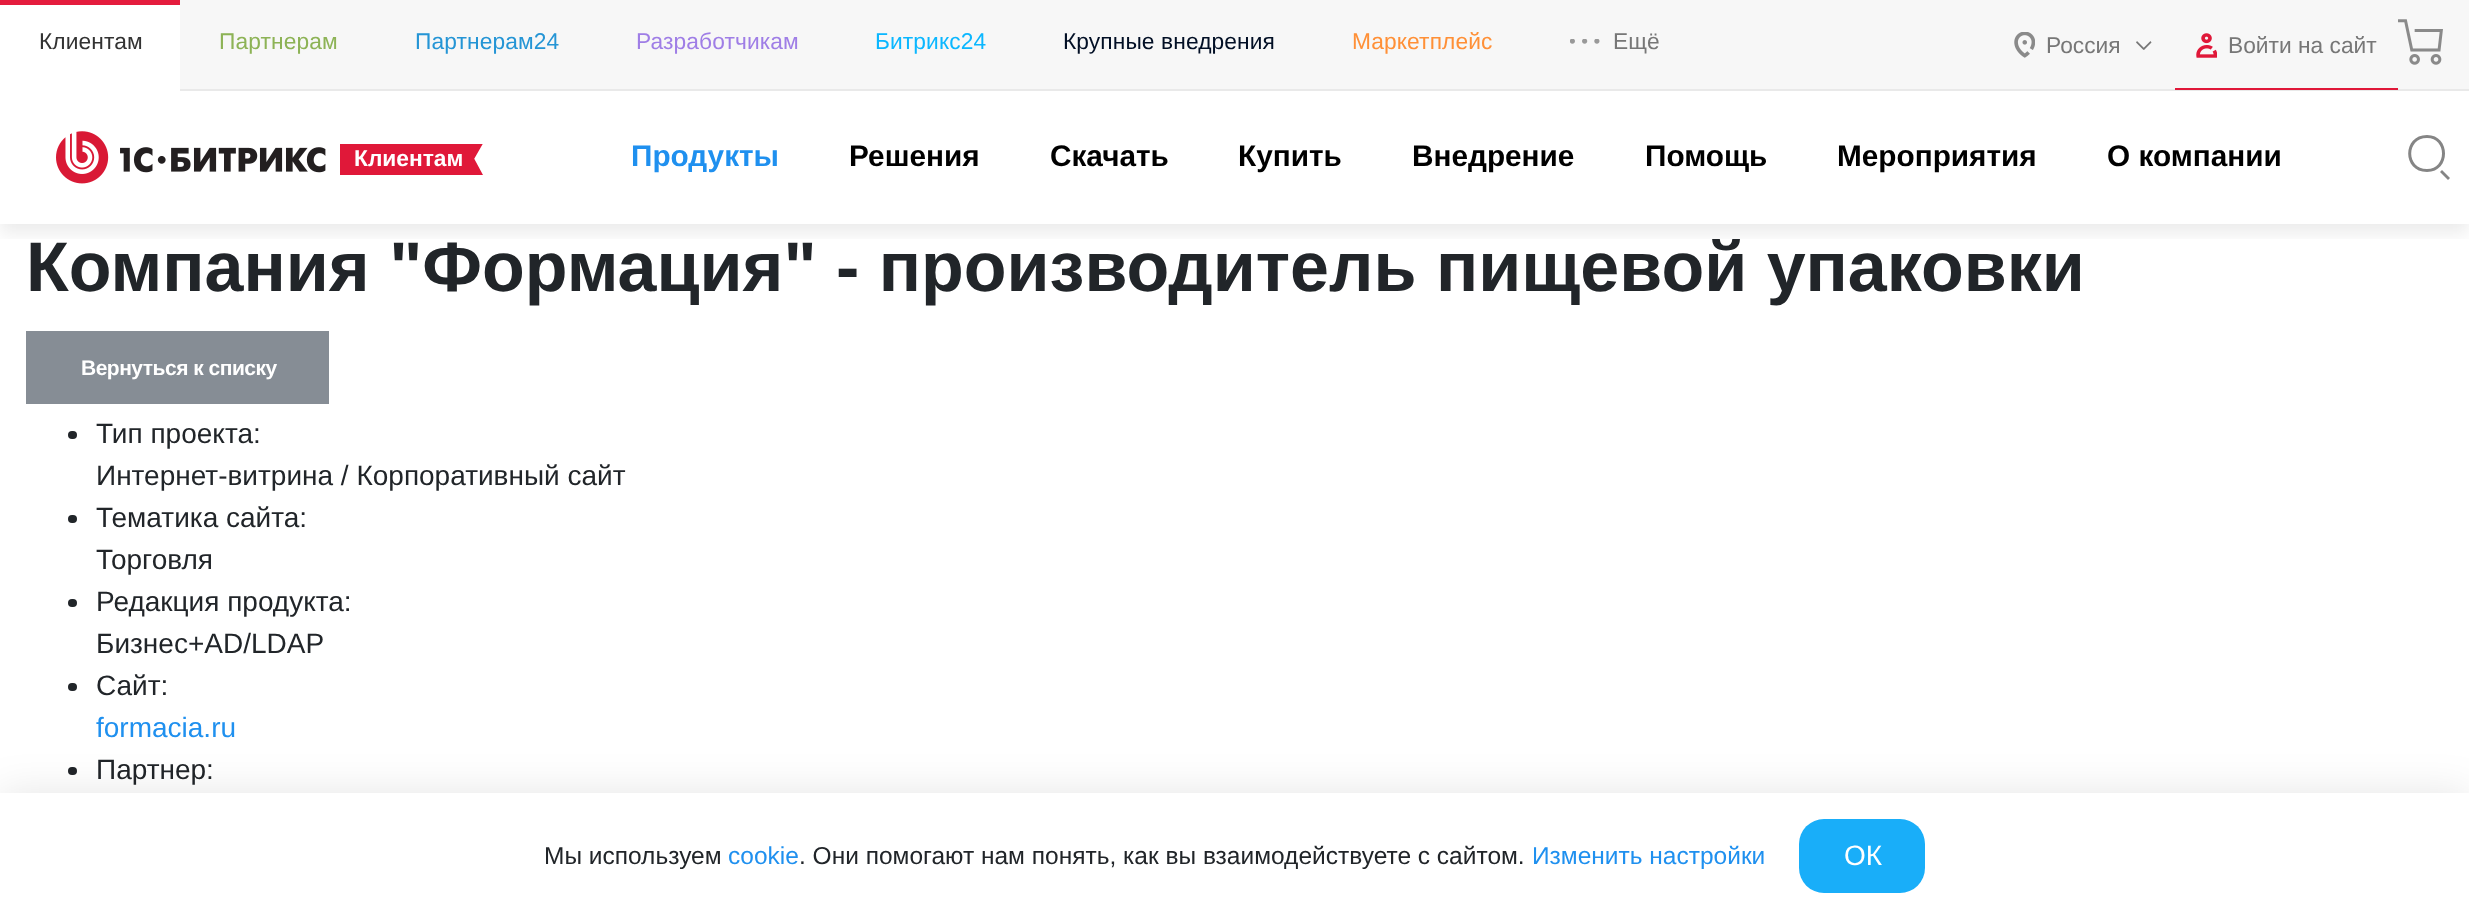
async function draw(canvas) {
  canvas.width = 2469
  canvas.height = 918
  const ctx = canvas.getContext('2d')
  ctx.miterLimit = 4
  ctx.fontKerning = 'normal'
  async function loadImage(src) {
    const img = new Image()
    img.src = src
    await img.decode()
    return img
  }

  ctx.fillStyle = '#fff'
  ctx.fillRect(0, 0, 2469, 918)
  ctx.fillStyle = '#f7f7f7'
  ctx.fillRect(180, 0, 2289, 89)
  ctx.fillStyle = '#e9e9e9'
  ctx.fillRect(180, 89, 2289, 2)
  ctx.fillStyle = '#e41c3d'
  ctx.fillRect(0, 0, 180, 5)
  ctx.letterSpacing = '0.1px'
  ctx.font = '22.75px Liberation Sans'
  ctx.fillStyle = '#333'
  ctx.fillText('Клиентам', 39, 49)
  ctx.fillStyle = '#8db356'
  ctx.fillText('Партнерам', 219, 49)
  ctx.fillStyle = '#2595d5'
  ctx.fillText('Партнерам24', 415, 49)
  ctx.fillStyle = '#9f7ee6'
  ctx.fillText('Разработчикам', 636, 49)
  ctx.fillStyle = '#0bb7ff'
  ctx.fillText('Битрикс24', 875, 49)
  ctx.fillStyle = '#020f25'
  ctx.fillText('Крупные внедрения', 1063, 49)
  ctx.fillStyle = '#ff9037'
  ctx.fillText('Маркетплейс', 1352, 49)
  ctx.drawImage(await loadImage('image0.png'), 1570, 39, 30, 5)
  ctx.fillStyle = '#777'
  ctx.fillText('Ещё', 1613, 49)
  ctx.drawImage(await loadImage('image1.png'), 2014, 32, 21, 26)
  ctx.letterSpacing = '0px'
  ctx.fillText('Россия', 2046, 53)
  ctx.beginPath()
  ctx.moveTo(2137, 41)
  ctx.lineTo(2144.5, 48.5)
  ctx.lineTo(2143.5, 50)
  ctx.lineTo(2136, 42.5)
  ctx.closePath()
  ctx.fill()
  ctx.beginPath()
  ctx.moveTo(2143, 48.5)
  ctx.lineTo(2150.5, 41)
  ctx.lineTo(2151.5, 42.5)
  ctx.lineTo(2144, 50)
  ctx.closePath()
  ctx.fill()
  ctx.fillStyle = '#e01839'
  ctx.fillRect(2175, 88, 223, 2)
  ctx.drawImage(await loadImage('image2.png'), 2196, 33, 21, 25)
  ctx.fillStyle = '#777'
  ctx.fillText('Войти на сайт', 2228, 53)
  ctx.drawImage(await loadImage('image3.png'), 2398, 19, 45, 46)
  ctx.save()
  ctx.beginPath()
  ctx.rect(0, 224, 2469, 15)
  ctx.clip()
  ctx.fillStyle = '#00000014'
  ctx.filter = 'blur(9px)'
  ctx.beginPath()
  ctx.rect(0, 100, 2469, 133)
  ctx.fill()
  ctx.filter = 'none'
  ctx.restore()
  ctx.drawImage(await loadImage('image4.png'), 56, 131, 270, 53)
  ctx.drawImage(await loadImage('image5.png'), 340, 144, 143, 31)
  ctx.font = 'bold 22.75px Liberation Sans'
  ctx.fillStyle = '#fff'
  ctx.fillText('Клиентам', 354, 166)
  ctx.font = 'bold 29.75px Liberation Sans'
  ctx.fillStyle = '#1f90ef'
  ctx.fillText('Продукты', 631, 166)
  ctx.fillStyle = '#000'
  ctx.fillText('Решения', 849, 166)
  ctx.fillText('Скачать', 1050, 166)
  ctx.fillText('Купить', 1238, 166)
  ctx.fillText('Внедрение', 1412, 166)
  ctx.fillText('Помощь', 1645, 166)
  ctx.fillText('Мероприятия', 1837, 166)
  ctx.fillText('О компании', 2107, 166)
  ctx.fillStyle = '#858585'
  ctx.beginPath()
  ctx.moveTo(2427, 172)
  ctx.bezierCurveTo(2402, 172, 2402, 135, 2427, 135)
  ctx.bezierCurveTo(2451, 135, 2451, 172, 2427, 172)
  ctx.closePath()
  ctx.moveTo(2427, 138)
  ctx.bezierCurveTo(2406, 138, 2406, 169, 2427, 169)
  ctx.bezierCurveTo(2447, 169, 2447, 138, 2427, 138)
  ctx.closePath()
  ctx.moveTo(2450, 178)
  ctx.lineTo(2448, 180)
  ctx.lineTo(2440, 172)
  ctx.lineTo(2442, 170)
  ctx.closePath()
  ctx.fill('evenodd')
  ctx.font = 'bold 70px Liberation Sans'
  ctx.fillStyle = '#212529'
  ctx.fillText('Компания "Формация" - производитель пищевой упаковки', 26, 291)
  ctx.fillStyle = '#868d95'
  ctx.fillRect(26, 331, 303, 73)
  ctx.letterSpacing = '-0.5px'
  ctx.font = 'bold 21px Liberation Sans'
  ctx.fillStyle = '#fff'
  ctx.fillText('Вернуться к списку', 81, 375)
  ctx.fillStyle = '#212529'
  ctx.beginPath()
  ctx.roundRect(68, 431, 9, 8, 4)
  ctx.fill()
  ctx.letterSpacing = '0px'
  ctx.font = '28px Liberation Sans'
  ctx.fillText('Тип проекта:', 96, 443)
  ctx.fillText('Интернет-витрина / Корпоративный сайт', 96, 485)
  ctx.beginPath()
  ctx.roundRect(68, 515, 9, 8, 4)
  ctx.fill()
  ctx.fillText('Тематика сайта:', 96, 527)
  ctx.fillText('Торговля', 96, 569)
  ctx.beginPath()
  ctx.roundRect(68, 599, 9, 8, 4)
  ctx.fill()
  ctx.fillText('Редакция продукта:', 96, 611)
  ctx.fillText('Бизнес+AD/LDAP', 96, 653)
  ctx.beginPath()
  ctx.roundRect(68, 683, 9, 8, 4)
  ctx.fill()
  ctx.fillText('Сайт:', 96, 695)
  ctx.fillStyle = '#1f90ef'
  ctx.fillText('formacia.ru', 96, 737)
  ctx.fillStyle = '#212529'
  ctx.beginPath()
  ctx.roundRect(68, 767, 9, 8, 4)
  ctx.fill()
  ctx.fillText('Партнер:', 96, 779)
  ctx.fillStyle = '#0000001a'
  ctx.filter = 'blur(21px)'
  ctx.beginPath()
  ctx.rect(0, 793, 2469, 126)
  ctx.fill()
  ctx.filter = 'none'
  ctx.fillStyle = '#fff'
  ctx.fillRect(0, 793, 2469, 125)
  ctx.font = '24.5px Liberation Sans'
  ctx.fillStyle = '#212529'
  ctx.fillText('Мы используем', 544, 864)
  ctx.fillStyle = '#1f90ef'
  ctx.fillText('cookie', 728, 864)
  ctx.fillStyle = '#212529'
  ctx.fillText('. Они помогают нам понять, как вы взаимодействуете с сайтом.', 799, 864)
  ctx.fillStyle = '#1f90ef'
  ctx.fillText('Изменить настройки', 1532, 864)
  ctx.fillStyle = '#19aef9'
  ctx.beginPath()
  ctx.roundRect(1799, 819, 126, 74, 25)
  ctx.fill()
  ctx.font = '28px Liberation Sans'
  ctx.fillStyle = '#fff'
  ctx.fillText('ОК', 1844, 865)
}

draw(document.querySelector('canvas'))
